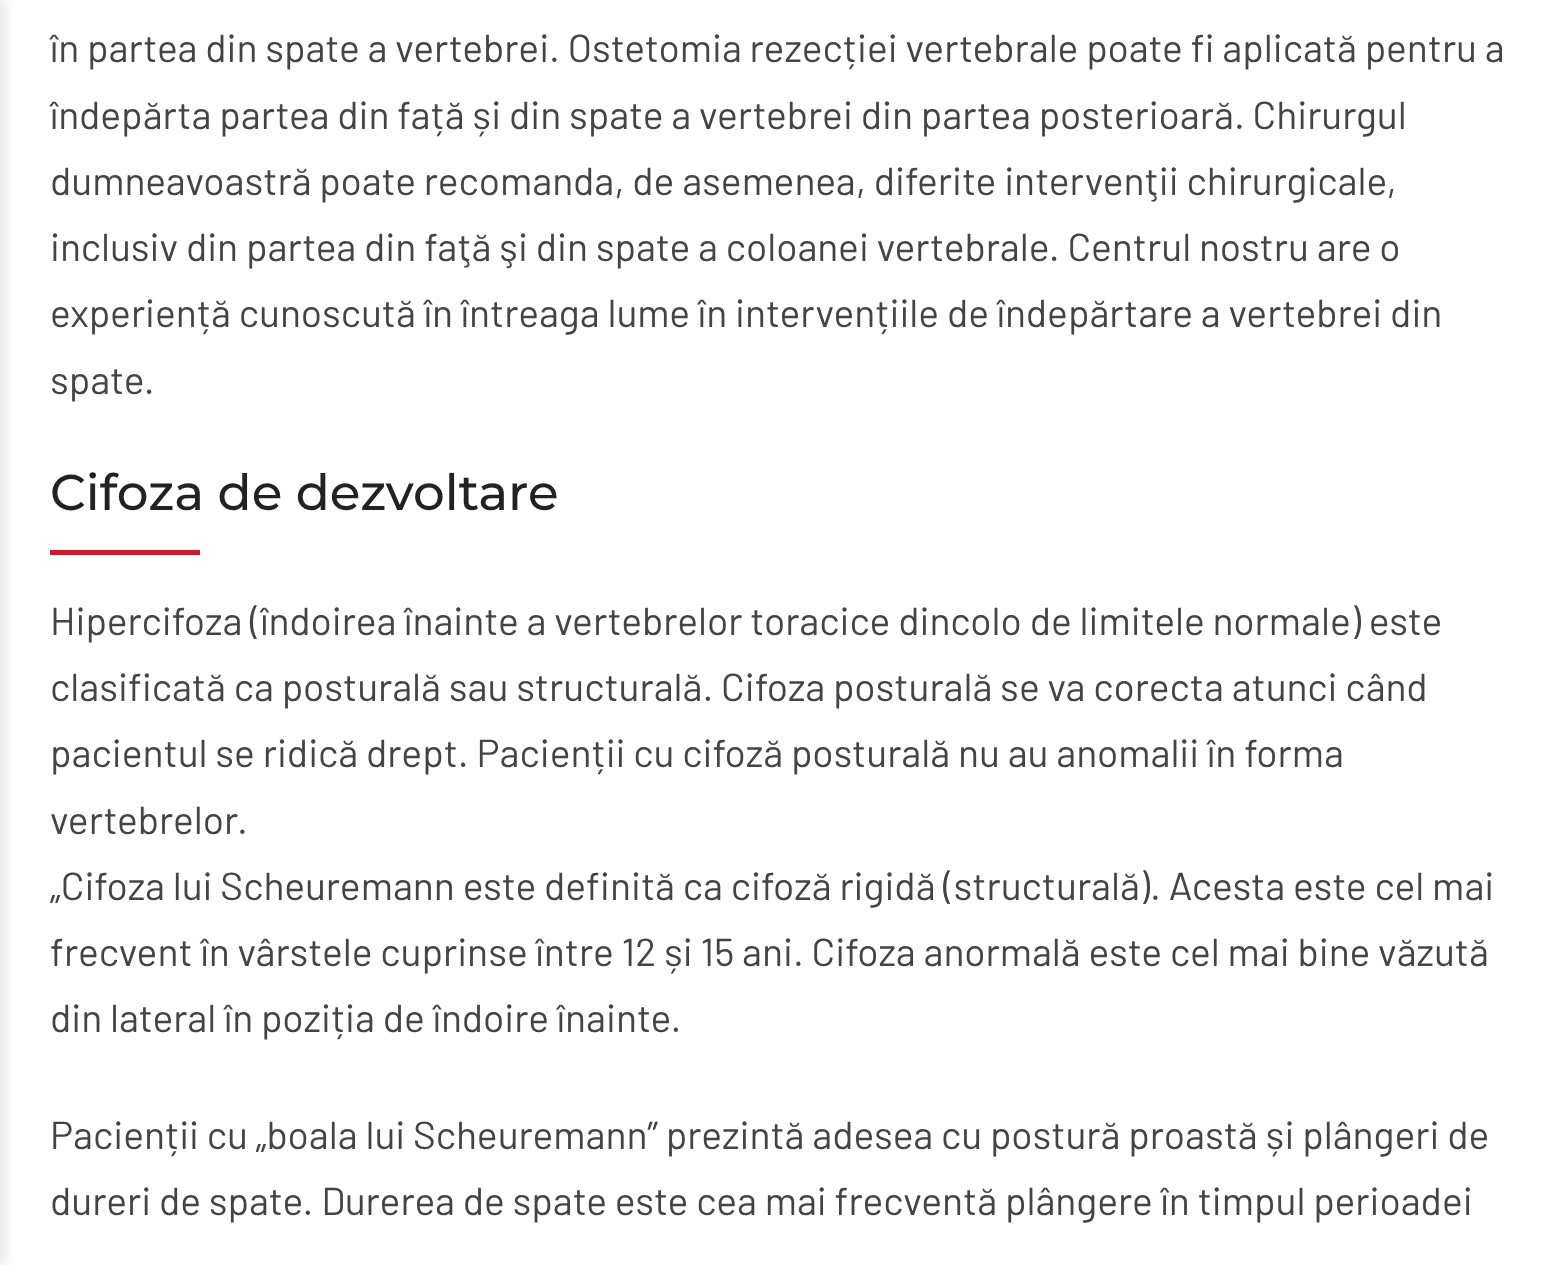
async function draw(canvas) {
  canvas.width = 1559
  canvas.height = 1265
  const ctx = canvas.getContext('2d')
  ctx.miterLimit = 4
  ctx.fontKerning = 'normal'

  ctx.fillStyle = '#fff'
  ctx.fillRect(0, 0, 1559, 1265)
  ctx.fillStyle = '#0000001a'
  ctx.filter = 'blur(6px)'
  ctx.beginPath()
  ctx.rect(-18, 0, 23, 1265)
  ctx.fill()
  ctx.filter = 'none'
  ctx.font = '39px Barlow'
  ctx.fillStyle = '#444'
  ctx.fillText('în partea din spate a vertebrei. Ostetomia rezecției vertebrale poate fi aplicată pentru a', 50, 62)
  ctx.fillText('îndepărta partea din față și din spate a vertebrei din partea posterioară. Chirurgul', 50, 129)
  ctx.fillText('dumneavoastră poate recomanda, de asemenea, diferite intervenţii chirurgicale,', 50, 195)
  ctx.fillText('inclusiv din partea din faţă şi din spate a coloanei vertebrale. Centrul nostru are o', 50, 261)
  ctx.fillText('experiență cunoscută în întreaga lume în intervențiile de îndepărtare a vertebrei din', 50, 327)
  ctx.fillText('spate.', 50, 394)
  ctx.font = '500 50px Montserrat'
  ctx.fillStyle = '#222'
  ctx.fillText('Cifoza de dezvoltare', 50, 510)
  ctx.fillStyle = '#e10f28'
  ctx.fillRect(50, 550, 150, 5)
  ctx.font = '39px Barlow'
  ctx.fillStyle = '#444'
  ctx.fillText('Hipercifoza (îndoirea înainte a vertebrelor toracice dincolo de limitele normale) este', 50, 635)
  ctx.fillText('clasificată ca posturală sau structurală. Cifoza posturală se va corecta atunci când', 50, 701)
  ctx.fillText('pacientul se ridică drept. Pacienții cu cifoză posturală nu au anomalii în forma', 50, 767)
  ctx.fillText('vertebrelor.', 50, 834)
  ctx.fillText('„Cifoza lui Scheuremann este definită ca cifoză rigidă (structurală). Acesta este cel mai', 50, 900)
  ctx.fillText('frecvent în vârstele cuprinse între 12 și 15 ani. Cifoza anormală este cel mai bine văzută', 50, 966)
  ctx.fillText('din lateral în poziția de îndoire înainte.', 50, 1032)
  ctx.fillText('Pacienții cu „boala lui Scheuremann” prezintă adesea cu postură proastă și plângeri de', 50, 1149)
  ctx.fillText('dureri de spate. Durerea de spate este cea mai frecventă plângere în timpul perioadei', 50, 1215)
}

draw(document.querySelector('canvas'))
